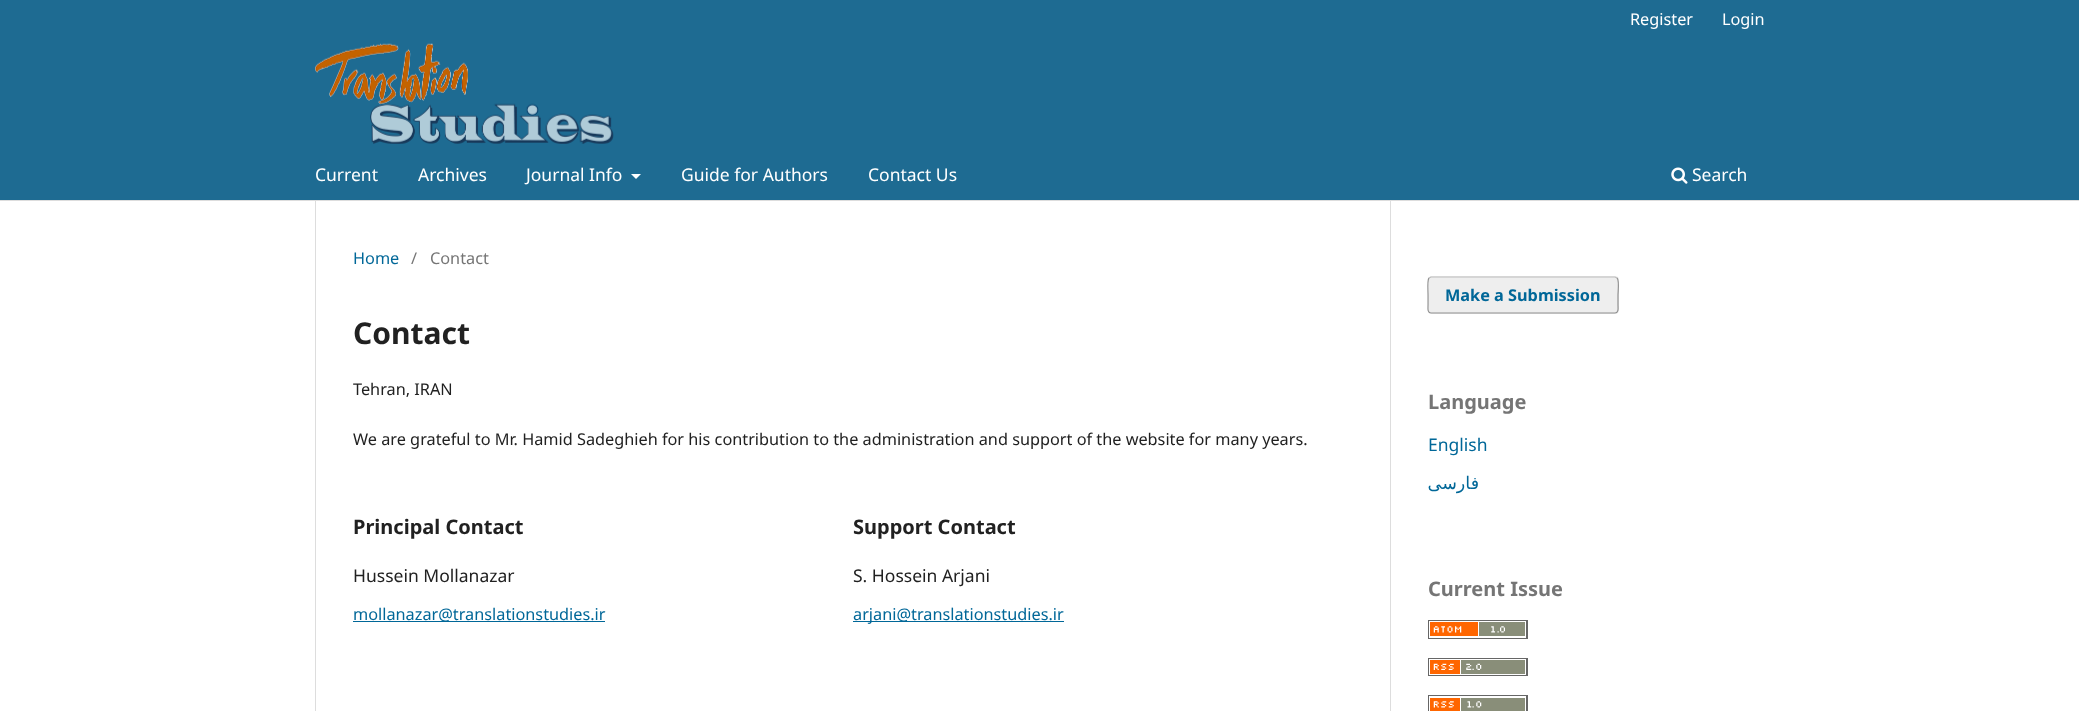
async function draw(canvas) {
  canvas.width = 2079
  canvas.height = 711
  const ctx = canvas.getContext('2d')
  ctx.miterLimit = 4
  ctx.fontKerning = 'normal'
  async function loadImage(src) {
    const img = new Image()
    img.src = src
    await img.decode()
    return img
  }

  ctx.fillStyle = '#fff'
  ctx.fillRect(0, 0, 2079, 711)
  ctx.fillStyle = '#1e6b92'
  ctx.fillRect(0, 0, 2079, 200)
  ctx.fillStyle = '#ddd'
  ctx.fillRect(0, 200, 2079, 1)
  ctx.font = '16.27px Noto Sans'
  ctx.fillStyle = '#fff'
  ctx.fillText('Register', 1630, 25)
  ctx.fillText('Login', 1722, 25)
  ctx.font = '17.5px Noto Sans'
  ctx.fillText('Current', 315, 181)
  ctx.fillText('Archives', 418, 181)
  ctx.fillText('Journal Info', 526, 181)
  ctx.beginPath()
  ctx.moveTo(631, 174)
  ctx.lineTo(641, 174)
  ctx.lineTo(636, 179)
  ctx.closePath()
  ctx.fill()
  ctx.fillText('Guide for Authors', 681, 181)
  ctx.fillText('Contact Us', 868, 181)
  ctx.drawImage(await loadImage('image0.png'), 1671, 167, 17, 17)
  ctx.fillText('Search', 1692, 181)
  ctx.drawImage(await loadImage('image1.png'), 315, 43, 299, 101)
  ctx.fillStyle = '#ddd'
  ctx.fillRect(315, 201, 1, 510)
  ctx.font = '16.27px Noto Sans'
  ctx.fillStyle = '#006798'
  ctx.fillText('Home', 353, 264)
  ctx.fillStyle = '#757575'
  ctx.fillText('/', 411, 264)
  ctx.fillText('Contact', 430, 264)
  ctx.font = 'bold 30px Noto Sans'
  ctx.fillStyle = '#212121'
  ctx.fillText('Contact', 353, 344)
  ctx.font = '16.27px Noto Sans'
  ctx.fillText('Tehran, IRAN', 353, 395)
  ctx.fillText('We are grateful to Mr. Hamid Sadeghieh for his contribution to the administration and support of the website for many years.', 353, 445)
  ctx.font = 'bold 20px Noto Sans'
  ctx.fillText('Principal Contact', 353, 534)
  ctx.font = '17.5px Noto Sans'
  ctx.fillText('Hussein Mollanazar', 353, 582)
  ctx.fillStyle = '#006798'
  ctx.fillRect(353, 621, 252, 1)
  ctx.font = '16.27px Noto Sans'
  ctx.fillText('mollanazar@translationstudies.ir', 353, 620)
  ctx.font = 'bold 20px Noto Sans'
  ctx.fillStyle = '#212121'
  ctx.fillText('Support Contact', 853, 534)
  ctx.font = '17.5px Noto Sans'
  ctx.fillText('S. Hossein Arjani', 853, 582)
  ctx.fillStyle = '#006798'
  ctx.fillRect(853, 621, 211, 1)
  ctx.font = '16.27px Noto Sans'
  ctx.fillText('arjani@translationstudies.ir', 853, 620)
  ctx.fillStyle = '#ddd'
  ctx.fillRect(1390, 201, 1, 510)
  ctx.fillStyle = '#eee'
  ctx.beginPath()
  ctx.roundRect(1428, 276, 191, 38, 4)
  ctx.fill()
  ctx.beginPath()
  ctx.moveTo(1429, 278)
  ctx.lineTo(1431, 277)
  ctx.lineTo(1615, 277)
  ctx.lineTo(1617, 278)
  ctx.strokeStyle = '#bbb'
  ctx.lineWidth = 1.2
  ctx.stroke()
  ctx.beginPath()
  ctx.moveTo(1617, 278)
  ctx.bezierCurveTo(1619.5, 280, 1618, 292, 1618, 295)
  ctx.lineTo(1618, 305)
  ctx.bezierCurveTo(1618, 307.5, 1619, 313, 1615, 313)
  ctx.lineTo(1431, 313)
  ctx.bezierCurveTo(1427, 313, 1428, 307.5, 1428, 305)
  ctx.lineTo(1428, 295)
  ctx.bezierCurveTo(1428, 292, 1427, 280, 1429, 278)
  ctx.strokeStyle = '#00000066'
  ctx.stroke()
  ctx.font = 'bold 16.27px Noto Sans'
  ctx.fillStyle = '#006798'
  ctx.fillText('Make a Submission', 1445, 301)
  ctx.font = 'bold 20px Noto Sans'
  ctx.fillStyle = '#757575'
  ctx.fillText('Language', 1428, 409)
  ctx.font = '17.5px Noto Sans'
  ctx.fillStyle = '#006798'
  ctx.fillText('English', 1428, 451)
  ctx.direction = 'rtl'
  ctx.font = '17.5px DejaVu Sans'
  ctx.fillText('فارسی', 1479, 489)
  ctx.direction = 'ltr'
  ctx.font = 'bold 20px Noto Sans'
  ctx.fillStyle = '#757575'
  ctx.fillText('Current Issue', 1428, 596)
  ctx.drawImage(await loadImage('image2.png'), 1428, 620, 100, 19)
  ctx.drawImage(await loadImage('image3.png'), 1428, 658, 100, 18)
  ctx.drawImage(await loadImage('image4.png'), 1428, 695, 100, 16)
}

draw(document.querySelector('canvas'))
